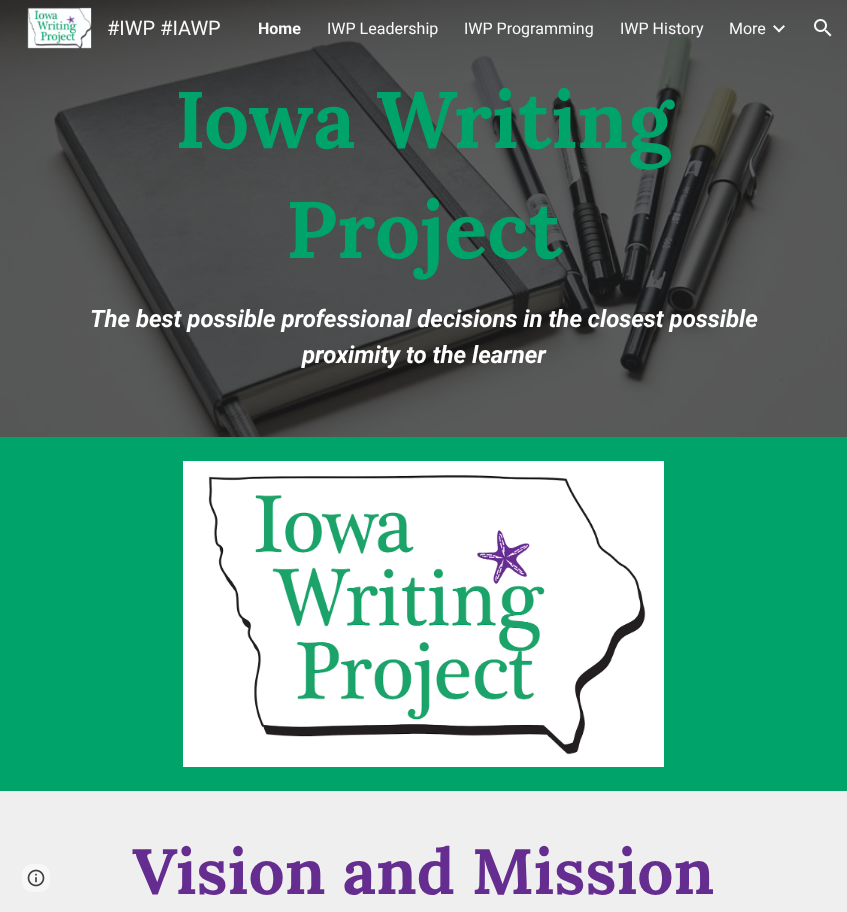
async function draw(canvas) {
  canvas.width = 847
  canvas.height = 912
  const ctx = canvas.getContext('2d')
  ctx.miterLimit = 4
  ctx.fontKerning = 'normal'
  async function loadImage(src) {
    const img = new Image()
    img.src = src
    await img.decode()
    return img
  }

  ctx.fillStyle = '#efefef'
  ctx.fillRect(0, 0, 847, 912)
  ctx.drawImage(await loadImage('image4.png'), 0, 0, 847, 437)
  ctx.drawImage(await loadImage('image0.png'), 27, 7, 65, 42)
  ctx.font = '20px Roboto'
  ctx.fillStyle = '#f9f9f9'
  ctx.fillText('#IWP #IAWP', 107, 35)
  ctx.font = 'bold 16px Roboto'
  ctx.fillText('Home', 258, 34)
  ctx.font = '16px Roboto'
  ctx.fillText('IWP Leadership', 327, 34)
  ctx.fillText('IWP Programming', 464, 34)
  ctx.fillText('IWP History', 620, 34)
  ctx.fillText('More', 729, 34)
  ctx.drawImage(await loadImage('image1.png'), 773, 25, 12, 8)
  ctx.drawImage(await loadImage('image2.png'), 814, 19, 18, 18)
  ctx.fillStyle = '#f7f7f7'
  ctx.beginPath()
  ctx.roundRect(22, 864, 28, 28, 10)
  ctx.fill()
  ctx.drawImage(await loadImage('image3.png'), 27, 869, 18, 18)
  ctx.font = 'bold 80px Lora'
  ctx.fillStyle = '#00a369'
  ctx.fillText('Iowa Writing', 175, 148)
  ctx.fillText('Project', 286, 258)
  ctx.font = 'italic bold 24px Roboto'
  ctx.fillStyle = '#fff'
  ctx.fillText('The best possible professional decisions in the closest possible', 90, 327)
  ctx.fillText('proximity to the learner', 302, 363)
  ctx.fillStyle = '#00a369'
  ctx.fillRect(0, 437, 847, 354)
  ctx.drawImage(await loadImage('image5.png'), 183, 461, 481, 306)
  ctx.font = 'bold 64px Lora'
  ctx.fillStyle = '#662d91'
  ctx.fillText('Vision and Mission', 132, 894)
}

draw(document.querySelector('canvas'))
